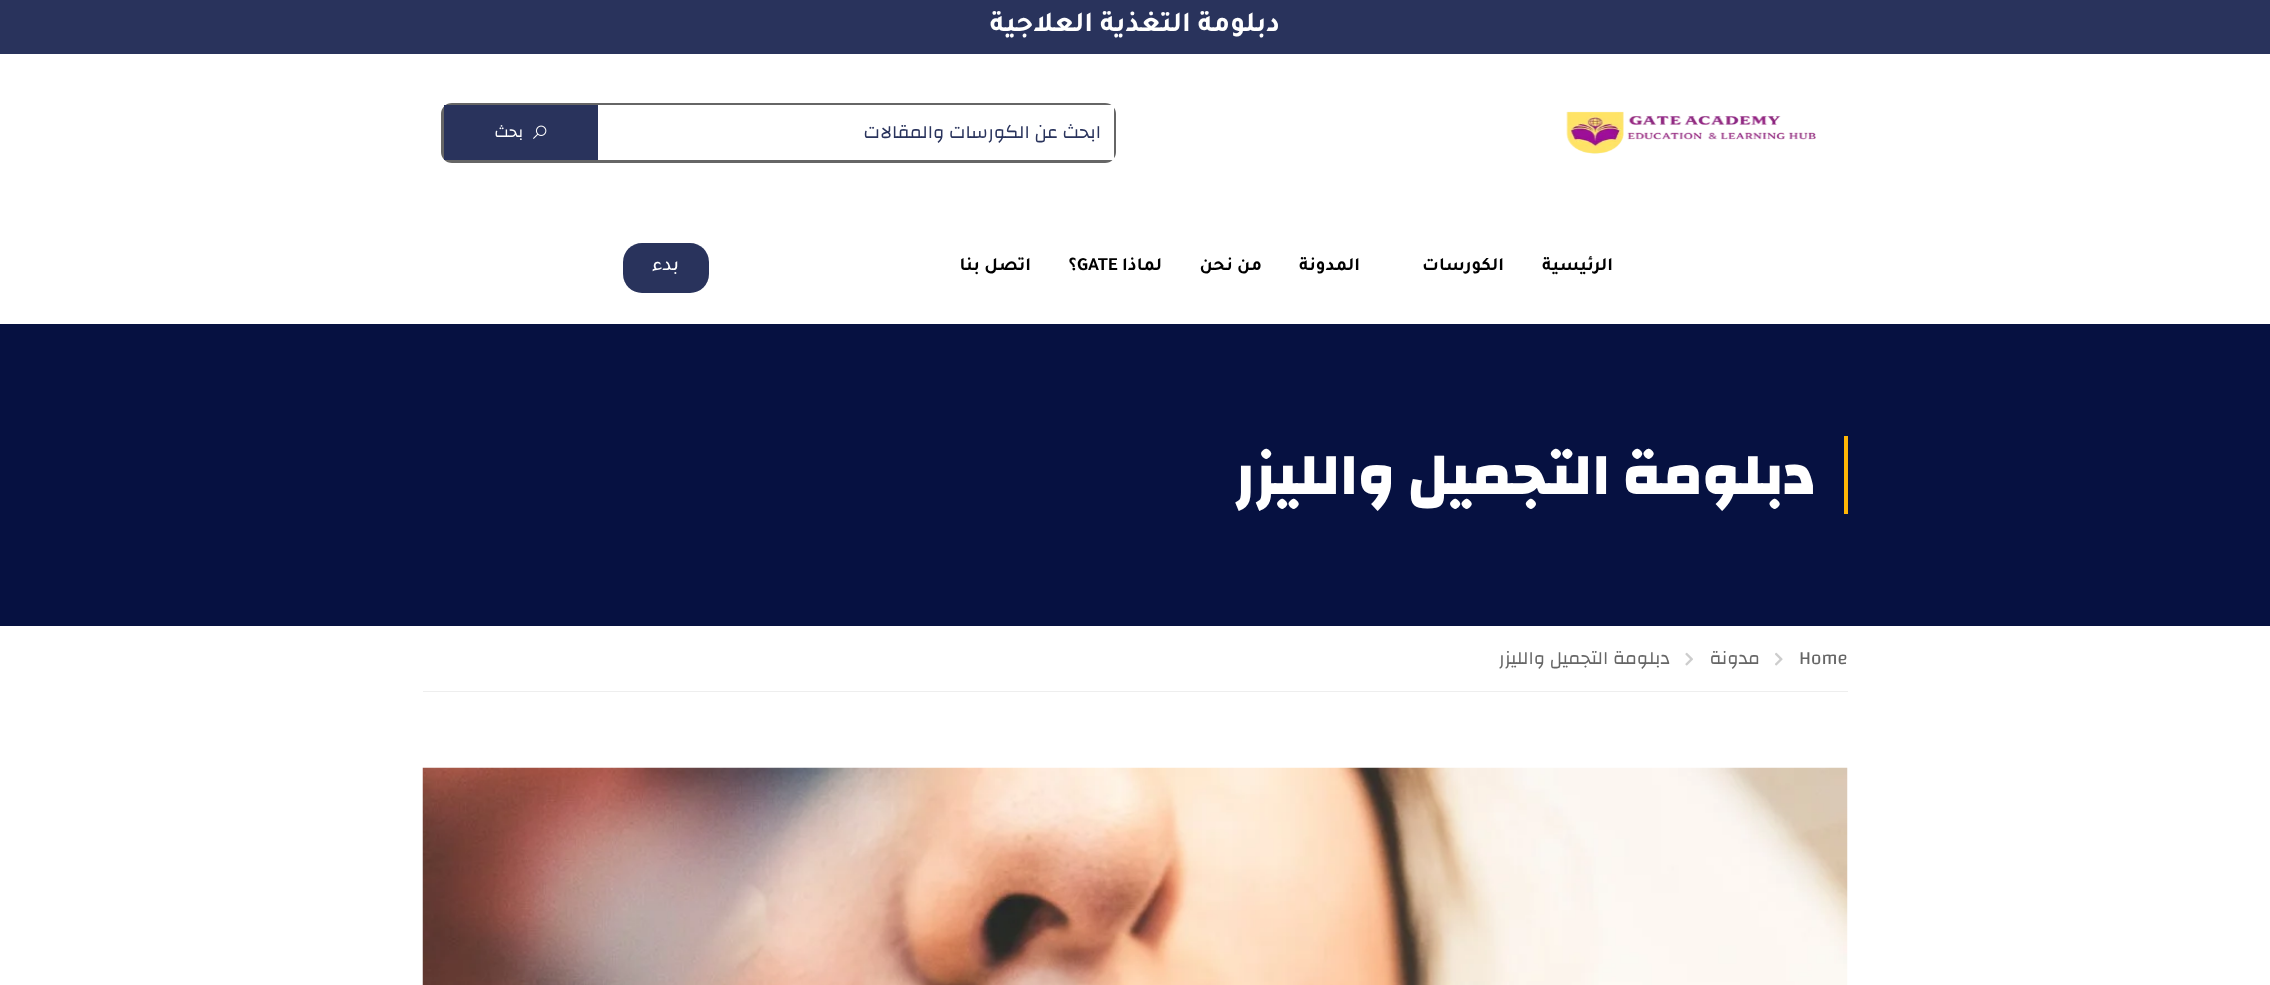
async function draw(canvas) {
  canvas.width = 2270
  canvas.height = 985
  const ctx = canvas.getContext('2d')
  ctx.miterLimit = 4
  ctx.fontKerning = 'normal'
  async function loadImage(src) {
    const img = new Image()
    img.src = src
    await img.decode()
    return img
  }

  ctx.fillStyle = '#fff'
  ctx.fillRect(0, 0, 2270, 985)
  ctx.fillStyle = '#29335c'
  ctx.fillRect(0, 0, 2270, 54)
  ctx.direction = 'rtl'
  ctx.font = 'bold 28.75px Tajawal'
  ctx.fillStyle = '#fff'
  ctx.fillText('دبلومة التغذية العلاجية', 1280, 31)
  ctx.drawImage(await loadImage('image0.png'), 1566, 111, 250, 43)
  ctx.beginPath()
  ctx.roundRect(442.5, 104.5, 672, 57, 9.5)
  ctx.strokeStyle = '#666'
  ctx.lineWidth = 3
  ctx.stroke()
  ctx.fillRect(598, 105, 516, 55)
  ctx.font = '18.75px Changa'
  ctx.fillStyle = '#29335c'
  ctx.fillText('ابحث عن الكورسات والمقالات', 1101, 138)
  ctx.fillRect(444, 105, 154, 55)
  ctx.drawImage(await loadImage('image1.png'), 533, 125, 14, 14)
  ctx.font = '16px Changa'
  ctx.fillStyle = '#fff'
  ctx.fillText('بحث', 523, 137)
  ctx.font = 'bold 18.75px Tajawal'
  ctx.fillStyle = '#000'
  ctx.fillText('الرئيسية', 1613, 270)
  ctx.fillText('الكورسات', 1504, 270)
  ctx.fillText('المدونة', 1360, 270)
  ctx.fillText('من نحن', 1262, 270)
  ctx.fillText('لماذا', 1162, 270)
  ctx.direction = 'ltr'
  ctx.fillText('GATE', 1077, 270)
  ctx.direction = 'rtl'
  ctx.fillText('؟', 1077, 270)
  ctx.fillText('اتصل بنا', 1031, 270)
  ctx.fillStyle = '#29335c'
  ctx.beginPath()
  ctx.roundRect(623, 243, 86, 50, 19)
  ctx.fill()
  ctx.font = '500 20px Tajawal'
  ctx.fillStyle = '#fff'
  ctx.fillText('بدء', 679, 270)
  ctx.fillStyle = '#061141'
  ctx.fillRect(0, 324, 2270, 302)
  ctx.fillStyle = '#ffb606'
  ctx.fillRect(1844, 436, 4, 78)
  ctx.font = '800 60px Changa'
  ctx.fillStyle = '#fff'
  ctx.fillText('دبلومة التجميل والليزر', 1816, 494)
  ctx.fillStyle = '#eee'
  ctx.fillRect(423, 691, 1425, 1)
  ctx.direction = 'ltr'
  ctx.font = '18.75px Changa'
  ctx.fillStyle = '#666'
  ctx.fillText('Home', 1799, 664)
  ctx.drawImage(await loadImage('image2.png'), 1775, 652, 8, 14)
  ctx.direction = 'rtl'
  ctx.fillText('مدونة', 1760, 664)
  ctx.drawImage(await loadImage('image3.png'), 1685, 652, 8, 14)
  ctx.fillText('دبلومة التجميل والليزر', 1670, 664)
  ctx.drawImage(await loadImage('image4.png'), 422, 767, 1426, 218)
}

draw(document.querySelector('canvas'))
